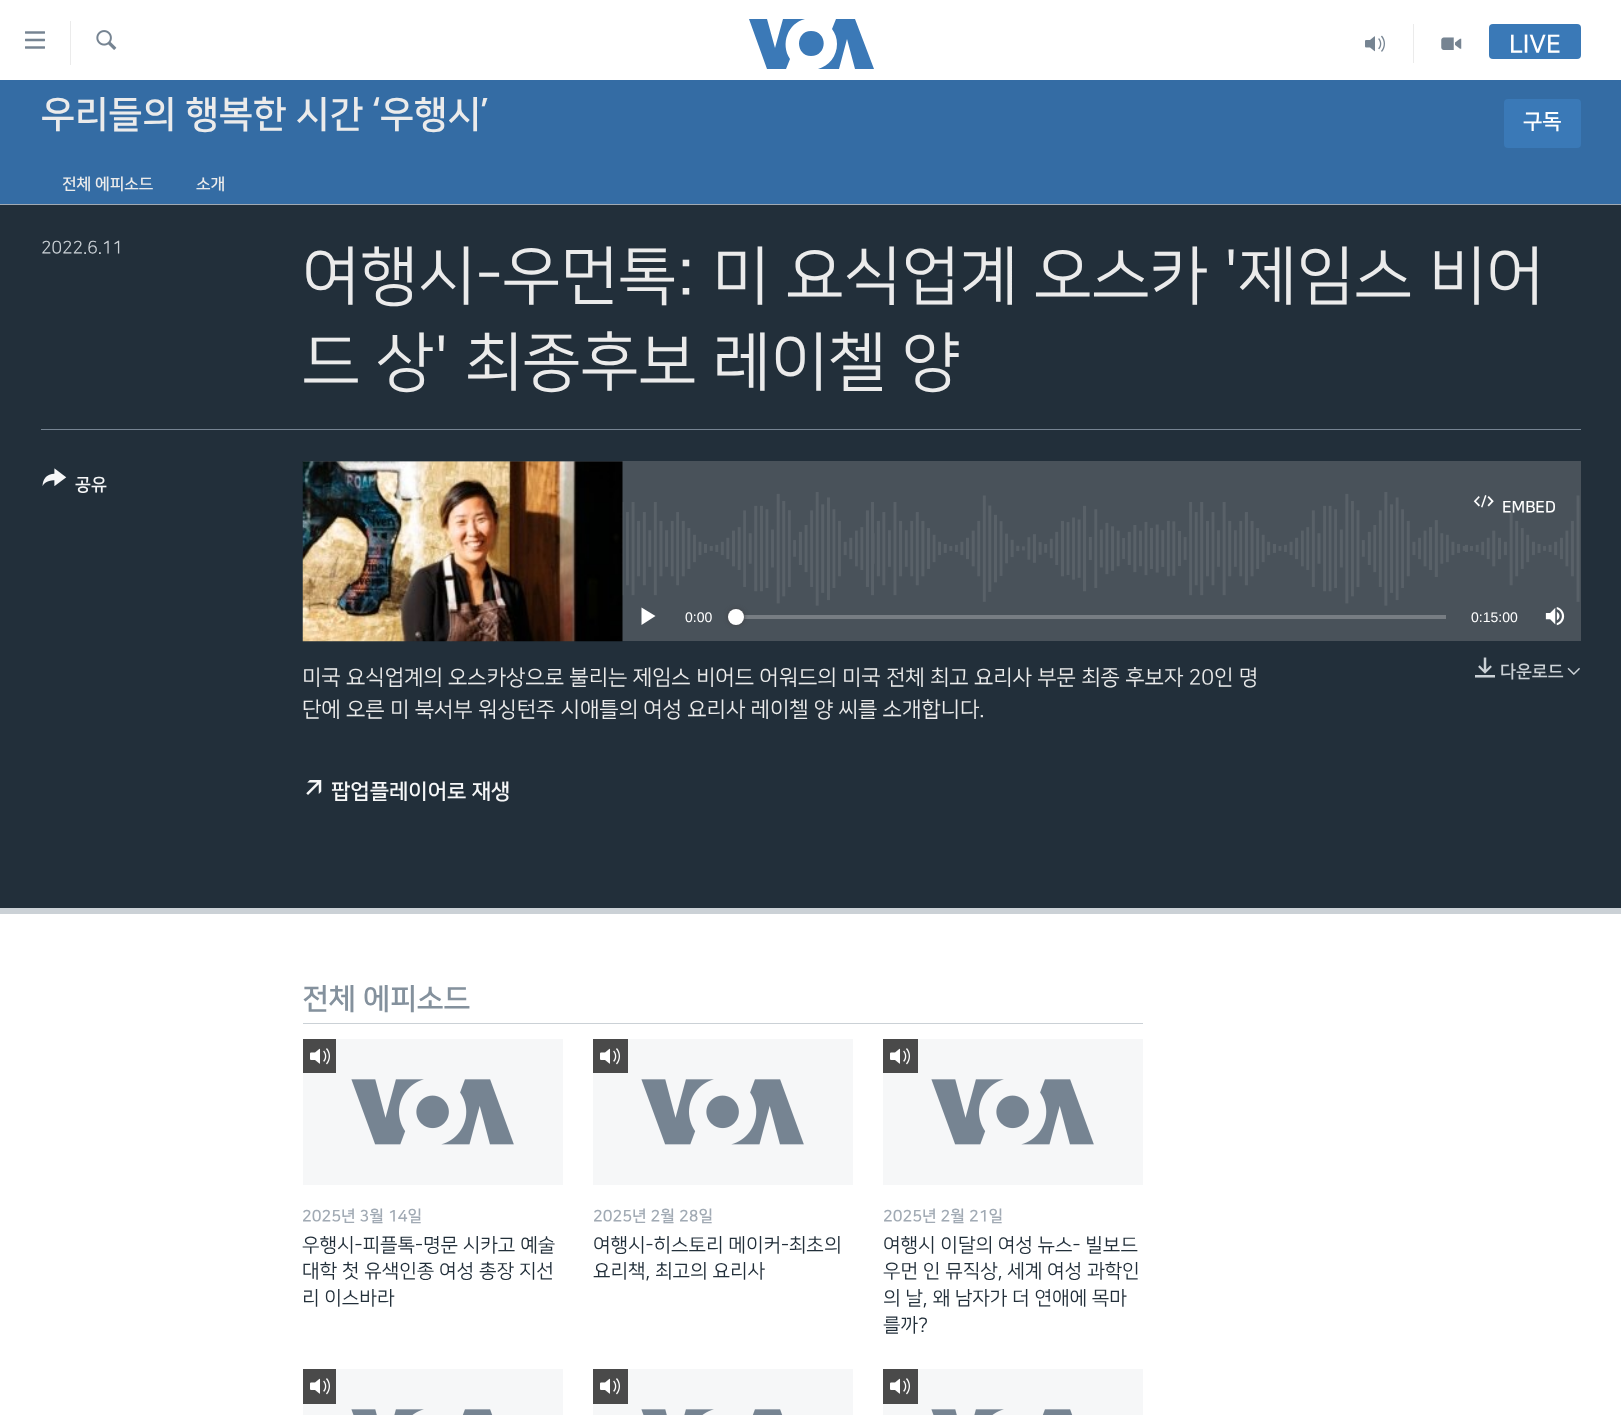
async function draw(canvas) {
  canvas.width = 1621
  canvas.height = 1415
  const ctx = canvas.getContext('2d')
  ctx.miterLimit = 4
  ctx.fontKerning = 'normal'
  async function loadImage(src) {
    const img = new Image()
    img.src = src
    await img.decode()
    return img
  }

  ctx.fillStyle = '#fff'
  ctx.fillRect(0, 0, 1621, 1415)
  ctx.drawImage(await loadImage('image0.png'), 25, 31, 20, 18)
  ctx.fillStyle = '#ebebeb'
  ctx.fillRect(70, 21, 1, 44)
  ctx.drawImage(await loadImage('image1.png'), 96, 30, 21, 20)
  ctx.fillStyle = '#3b79b7'
  ctx.beginPath()
  ctx.moveTo(790, 59)
  ctx.lineTo(786, 69)
  ctx.lineTo(767, 69)
  ctx.lineTo(749, 19)
  ctx.lineTo(767, 19)
  ctx.lineTo(775, 48)
  ctx.lineTo(783, 19)
  ctx.lineTo(805, 19)
  ctx.bezierCurveTo(788, 23, 780, 44, 790, 59)
  ctx.closePath()
  ctx.moveTo(811, 31)
  ctx.bezierCurveTo(795, 31, 795, 56, 811, 56)
  ctx.bezierCurveTo(828, 56, 828, 31, 811, 31)
  ctx.closePath()
  ctx.moveTo(837, 44)
  ctx.bezierCurveTo(837, 56, 829, 66, 818, 69)
  ctx.lineTo(839, 69)
  ctx.lineTo(847, 39)
  ctx.lineTo(855, 69)
  ctx.lineTo(874, 69)
  ctx.lineTo(855, 19)
  ctx.lineTo(836, 19)
  ctx.lineTo(832, 29)
  ctx.bezierCurveTo(835, 33, 837, 38, 837, 44)
  ctx.closePath()
  ctx.fill()
  ctx.fillStyle = '#ebebeb'
  ctx.fillRect(1413, 24, 1, 39)
  ctx.drawImage(await loadImage('image2.png'), 1365, 35, 20, 17)
  ctx.drawImage(await loadImage('image3.png'), 1441, 37, 21, 13)
  ctx.fillStyle = '#3a79b7'
  ctx.beginPath()
  ctx.roundRect(1489, 24, 92, 35, 4)
  ctx.fill()
  ctx.font = 'bold 25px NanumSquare'
  ctx.fillStyle = '#fff'
  ctx.fillText('LIVE', 1509, 52)
  ctx.fillStyle = '#346ca4'
  ctx.fillRect(0, 80, 1621, 124)
  ctx.font = 'bold 37.1px NanumSquare'
  ctx.fillStyle = '#ebebeb'
  ctx.fillText('우리들의 행복한 시간 ‘우행시’', 41, 126)
  ctx.fillStyle = '#3a79b7'
  ctx.beginPath()
  ctx.roundRect(1504, 99, 77, 49, 4)
  ctx.fill()
  ctx.font = 'bold 21.25px NanumSquare'
  ctx.fillStyle = '#fff'
  ctx.fillText('구독', 1523, 128)
  ctx.font = 'bold 16px NanumSquare'
  ctx.fillStyle = '#ebebeb'
  ctx.fillText('전체 에피소드', 62, 189)
  ctx.fillText('소개', 196, 189)
  ctx.fillStyle = '#222f3a'
  ctx.fillRect(0, 205, 1621, 703)
  ctx.fillStyle = '#a1aab4'
  ctx.fillRect(0, 204, 1621, 1)
  ctx.fillStyle = '#cbd1d6'
  ctx.fillRect(0, 908, 1621, 6)
  ctx.font = '17.5px NanumSquare'
  ctx.fillText('2022.6.11', 41, 253)
  ctx.font = '63.75px NanumSquare'
  ctx.fillStyle = '#ebebeb'
  ctx.fillText('여행시-우먼톡: 미 요식업계 오스카 \'제임스 비어', 302, 296)
  ctx.fillText('드 상\' 최종후보 레이첼 양', 302, 382)
  ctx.fillStyle = '#768492'
  ctx.fillRect(41, 429, 1540, 1)
  ctx.drawImage(await loadImage('image4.png'), 42, 468, 25, 18)
  ctx.font = 'bold 17.5px NanumSquare'
  ctx.fillStyle = '#f6f7f8'
  ctx.fillText('공유', 75, 490)
  ctx.fillStyle = '#49525a'
  ctx.fillRect(303, 461, 1278, 180)
  ctx.drawImage(await loadImage('image5.png'), 302, 492, 1278, 114)
  ctx.drawImage(await loadImage('image6.png'), 302, 461, 321, 181)
  ctx.drawImage(await loadImage('image7.png'), 1473, 495, 21, 13)
  ctx.font = 'bold 16px NanumSquare'
  ctx.fillStyle = '#fff'
  ctx.fillText('EMBED', 1502, 512)
  ctx.beginPath()
  ctx.moveTo(641.5, 625)
  ctx.lineTo(655.5, 616)
  ctx.lineTo(641.5, 607.5)
  ctx.closePath()
  ctx.fill()
  ctx.font = '14px Liberation Sans'
  ctx.fillText('0:00', 685, 622)
  ctx.fillStyle = '#777d83'
  ctx.fillRect(736, 615, 710, 4)
  ctx.fillStyle = '#414144'
  ctx.filter = 'blur(2px)'
  ctx.beginPath()
  ctx.roundRect(728, 609, 16, 16, 8)
  ctx.fill()
  ctx.filter = 'none'
  ctx.fillStyle = '#fff'
  ctx.beginPath()
  ctx.arc(736, 617, 8, 0, 2 * Math.PI)
  ctx.fill()
  ctx.fillText('0:15:00', 1471, 622)
  ctx.drawImage(await loadImage('image8.png'), 1545, 607, 20, 19)
  ctx.font = '21.25px NanumSquare'
  ctx.fillStyle = '#ebebeb'
  ctx.fillText('미국 요식업계의 오스카상으로 불리는 제임스 비어드 어워드의 미국 전체 최고 요리사 부문 최종 후보자 20인 명', 302, 684)
  ctx.fillText('단에 오른 미 북서부 워싱턴주 시애틀의 여성 요리사 레이첼 양 씨를 소개합니다.', 302, 716)
  ctx.drawImage(await loadImage('image9.png'), 1475, 657, 20, 21)
  ctx.font = 'bold 17.5px NanumSquare'
  ctx.fillStyle = '#cbd1d6'
  ctx.fillText('다운로드', 1500, 677)
  ctx.drawImage(await loadImage('image10.png'), 1567, 667, 13, 8)
  ctx.drawImage(await loadImage('image11.png'), 306, 780, 16, 15)
  ctx.font = 'bold 21.25px NanumSquare'
  ctx.fillStyle = '#f6f7f8'
  ctx.fillText('팝업플레이어로 재생', 331, 798)
  ctx.fillStyle = '#cbd1d6'
  ctx.fillRect(303, 1023, 840, 1)
  ctx.font = 'bold 29.5px NanumSquare'
  ctx.fillStyle = '#84919d'
  ctx.fillText('전체 에피소드', 302, 1008)
  ctx.fillStyle = '#f6f7f8'
  ctx.fillRect(303, 1039, 260, 146)
  ctx.drawImage(await loadImage('image12.png'), 351, 1079, 163, 66)
  ctx.fillStyle = '#4a4a4a'
  ctx.fillRect(303, 1039, 33, 34)
  ctx.drawImage(await loadImage('image13.png'), 310, 1048, 20, 17)
  ctx.font = 'bold 16px NanumSquare'
  ctx.fillStyle = '#a1aab4'
  ctx.fillText('2025년 3월 14일', 302, 1221)
  ctx.font = '19.25px NanumSquare'
  ctx.fillStyle = '#222f3a'
  ctx.fillText('우행시-피플톡-명문 시카고 예술', 302, 1251)
  ctx.fillText('대학 첫 유색인종 여성 총장 지선', 302, 1277)
  ctx.fillText('리 이스바라', 302, 1304)
  ctx.fillStyle = '#f6f7f8'
  ctx.fillRect(593, 1039, 260, 146)
  ctx.drawImage(await loadImage('image12.png'), 641, 1079, 163, 66)
  ctx.fillStyle = '#4a4a4a'
  ctx.fillRect(593, 1039, 35, 34)
  ctx.drawImage(await loadImage('image13.png'), 600, 1048, 20, 17)
  ctx.font = 'bold 16px NanumSquare'
  ctx.fillStyle = '#a1aab4'
  ctx.fillText('2025년 2월 28일', 593, 1221)
  ctx.font = '19.25px NanumSquare'
  ctx.fillStyle = '#222f3a'
  ctx.fillText('여행시-히스토리 메이커-최초의', 593, 1251)
  ctx.fillText('요리책, 최고의 요리사', 593, 1277)
  ctx.fillStyle = '#f6f7f8'
  ctx.fillRect(883, 1039, 260, 146)
  ctx.drawImage(await loadImage('image12.png'), 931, 1079, 163, 66)
  ctx.fillStyle = '#4a4a4a'
  ctx.fillRect(883, 1039, 35, 34)
  ctx.drawImage(await loadImage('image13.png'), 890, 1048, 20, 17)
  ctx.font = 'bold 16px NanumSquare'
  ctx.fillStyle = '#a1aab4'
  ctx.fillText('2025년 2월 21일', 883, 1221)
  ctx.font = '19.25px NanumSquare'
  ctx.fillStyle = '#222f3a'
  ctx.fillText('여행시 이달의 여성 뉴스- 빌보드', 883, 1251)
  ctx.fillText('우먼 인 뮤직상, 세계 여성 과학인', 883, 1277)
  ctx.fillText('의 날, 왜 남자가 더 연애에 목마', 883, 1304)
  ctx.fillText('를까?', 883, 1331)
  ctx.fillStyle = '#f6f7f8'
  ctx.fillRect(303, 1369, 260, 46)
  ctx.drawImage(await loadImage('image14.png'), 351, 1409, 142, 6)
  ctx.fillStyle = '#4a4a4a'
  ctx.fillRect(303, 1369, 33, 35)
  ctx.drawImage(await loadImage('image13.png'), 310, 1378, 20, 17)
  ctx.fillStyle = '#f6f7f8'
  ctx.fillRect(593, 1369, 260, 46)
  ctx.drawImage(await loadImage('image14.png'), 641, 1409, 142, 6)
  ctx.fillStyle = '#4a4a4a'
  ctx.fillRect(593, 1369, 35, 35)
  ctx.drawImage(await loadImage('image13.png'), 600, 1378, 20, 17)
  ctx.fillStyle = '#f6f7f8'
  ctx.fillRect(883, 1369, 260, 46)
  ctx.drawImage(await loadImage('image14.png'), 931, 1409, 142, 6)
  ctx.fillStyle = '#4a4a4a'
  ctx.fillRect(883, 1369, 35, 35)
  ctx.drawImage(await loadImage('image13.png'), 890, 1378, 20, 17)
}

draw(document.querySelector('canvas'))
